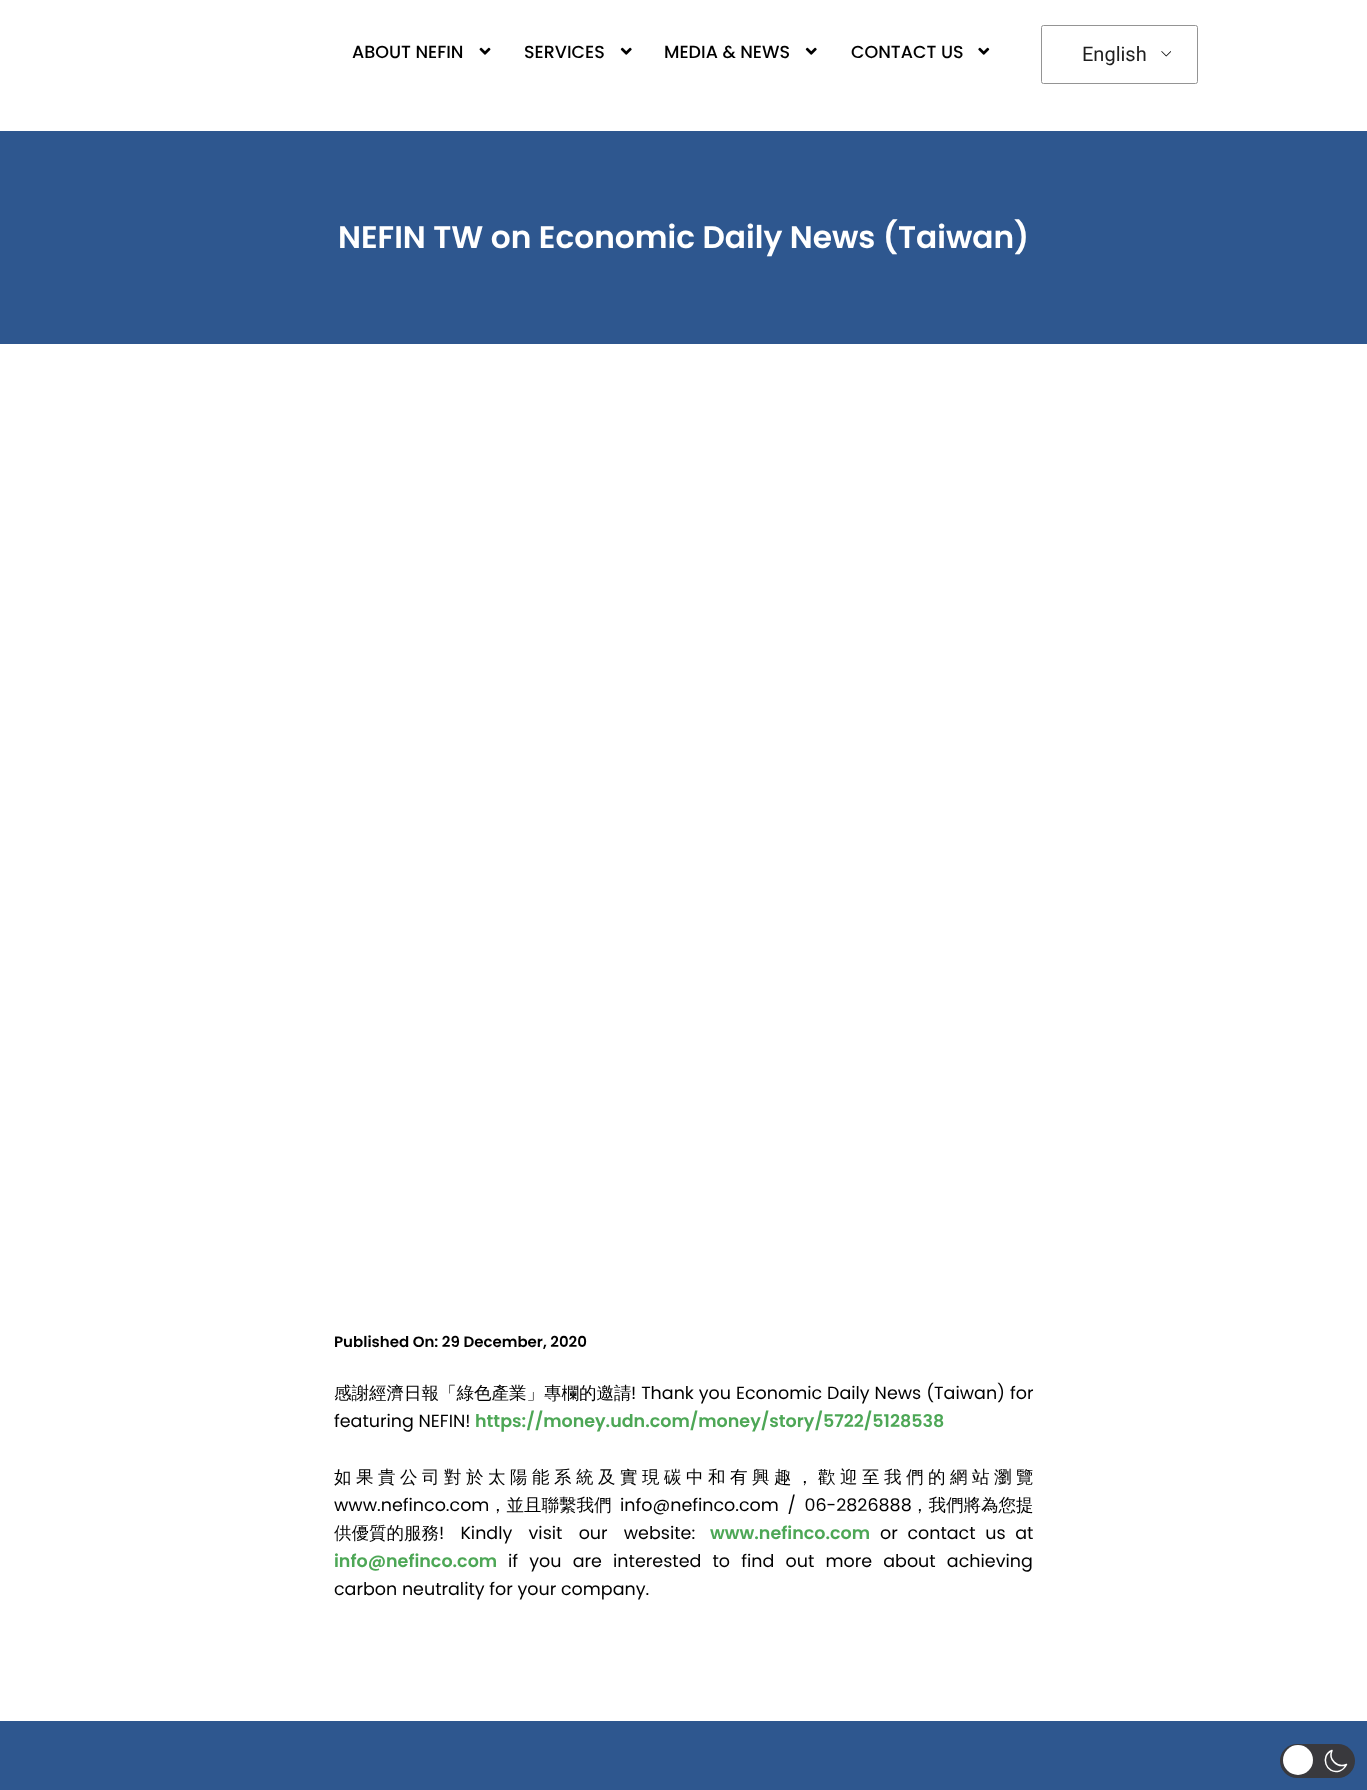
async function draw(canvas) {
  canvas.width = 1367
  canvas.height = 1790
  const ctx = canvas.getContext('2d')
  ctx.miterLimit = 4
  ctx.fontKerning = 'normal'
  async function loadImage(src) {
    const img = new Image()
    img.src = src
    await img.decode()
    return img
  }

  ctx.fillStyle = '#fff'
  ctx.fillRect(0, 0, 1367, 1790)
  ctx.font = '500 17.5px Poppins'
  ctx.fillStyle = '#000'
  ctx.fillText('ABOUT NEFIN', 352, 58)
  ctx.drawImage(await loadImage('image0.png'), 479, 47, 12, 8)
  ctx.fillText('SERVICES', 524, 58)
  ctx.drawImage(await loadImage('image1.png'), 620, 47, 12, 8)
  ctx.fillText('MEDIA & NEWS', 664, 58)
  ctx.drawImage(await loadImage('image1.png'), 805, 47, 12, 8)
  ctx.fillText('CONTACT US', 851, 58)
  ctx.drawImage(await loadImage('image2.png'), 978, 47, 12, 8)
  ctx.drawImage(await loadImage('image3.png'), 1161, 51, 10, 6)
  ctx.beginPath()
  ctx.roundRect(1041.5, 25.5, 156, 58, 2)
  ctx.strokeStyle = '#949494'
  ctx.stroke()
  ctx.font = '20px Roboto'
  ctx.fillStyle = '#1e1e1e'
  ctx.fillText('English', 1082, 61)
  ctx.fillStyle = '#2e578f'
  ctx.fillRect(0, 131, 1367, 213)
  ctx.font = '600 31.25px Poppins'
  ctx.fillStyle = '#fff'
  ctx.fillText('NEFIN TW on Economic Daily News (Taiwan)', 338, 248)
  ctx.font = '600 15px Poppins'
  ctx.fillStyle = '#000'
  ctx.fillText('Published On: 29 December, 2020', 334, 1347)
  ctx.font = '500 17.5px WenQuanYi Zen Hei'
  ctx.fillText('感謝經濟日報「綠色產業」專欄的邀請', 334, 1399)
  ctx.wordSpacing = '0.25px'
  ctx.font = '17.5px Poppins'
  ctx.fillText('! Thank you Economic Daily News (Taiwan) for', 631, 1399)
  ctx.wordSpacing = '0px'
  ctx.fillText('featuring NEFIN!', 334, 1427)
  ctx.font = '600 17.5px Poppins'
  ctx.fillStyle = '#4da756'
  ctx.fillText('https://money.udn.com/money/story/5722/5128538', 475, 1427)
  ctx.letterSpacing = '4.5px'
  ctx.font = '500 17.5px WenQuanYi Zen Hei'
  ctx.fillStyle = '#000'
  ctx.fillText('如果貴公司對於太陽能系統及實現碳中和有興趣，歡迎至我們的網站瀏覽', 334, 1483)
  ctx.letterSpacing = '0px'
  ctx.font = '17.5px Poppins'
  ctx.fillText('www.nefinco.com', 334, 1511)
  ctx.font = '500 17.5px WenQuanYi Zen Hei'
  ctx.fillText('，並且聯繫我們', 489, 1511)
  ctx.wordSpacing = '4px'
  ctx.font = '17.5px Poppins'
  ctx.fillText('info@nefinco.com / 06-2826888', 620, 1511)
  ctx.wordSpacing = '0px'
  ctx.font = '500 17.5px WenQuanYi Zen Hei'
  ctx.fillText('，我們將為您提', 911, 1511)
  ctx.fillText('供優質的服務', 334, 1539)
  ctx.wordSpacing = '11.5px'
  ctx.font = '17.5px Poppins'
  ctx.fillText('! Kindly visit our website:', 439, 1539)
  ctx.wordSpacing = '0px'
  ctx.font = '600 17.5px Poppins'
  ctx.fillStyle = '#4da756'
  ctx.fillText('www.nefinco.com', 710, 1539)
  ctx.wordSpacing = '5px'
  ctx.font = '17.5px Poppins'
  ctx.fillStyle = '#000'
  ctx.fillText('or contact us at', 880, 1539)
  ctx.wordSpacing = '0px'
  ctx.font = '600 17.5px Poppins'
  ctx.fillStyle = '#4da756'
  ctx.fillText('info@nefinco.com', 334, 1567)
  ctx.wordSpacing = '6.5px'
  ctx.font = '17.5px Poppins'
  ctx.fillStyle = '#000'
  ctx.fillText('if you are interested to find out more about achieving', 508, 1567)
  ctx.wordSpacing = '0px'
  ctx.fillText('carbon neutrality for your company.', 334, 1595)
  ctx.fillStyle = '#2e578f'
  ctx.fillRect(0, 1721, 1367, 69)
  ctx.fillStyle = '#39393d'
  ctx.beginPath()
  ctx.roundRect(1280, 1744, 75, 34, 17)
  ctx.fill()
  ctx.fillStyle = '#fff'
  ctx.beginPath()
  ctx.arc(1298, 1760, 15, 0, 2 * Math.PI)
  ctx.fill()
  ctx.beginPath()
  ctx.moveTo(1346.5, 1764.5)
  ctx.bezierCurveTo(1337.5, 1768.5, 1328, 1759.5, 1332, 1750.5)
  ctx.bezierCurveTo(1319.5, 1755.5, 1326, 1775, 1339.5, 1771)
  ctx.bezierCurveTo(1342.5, 1770, 1345, 1767.5, 1346.5, 1764.5)
  ctx.closePath()
  ctx.strokeStyle = '#fff'
  ctx.lineWidth = 1.5
  ctx.lineCap = 'round'
  ctx.lineJoin = 'round'
  ctx.stroke()
}

draw(document.querySelector('canvas'))
